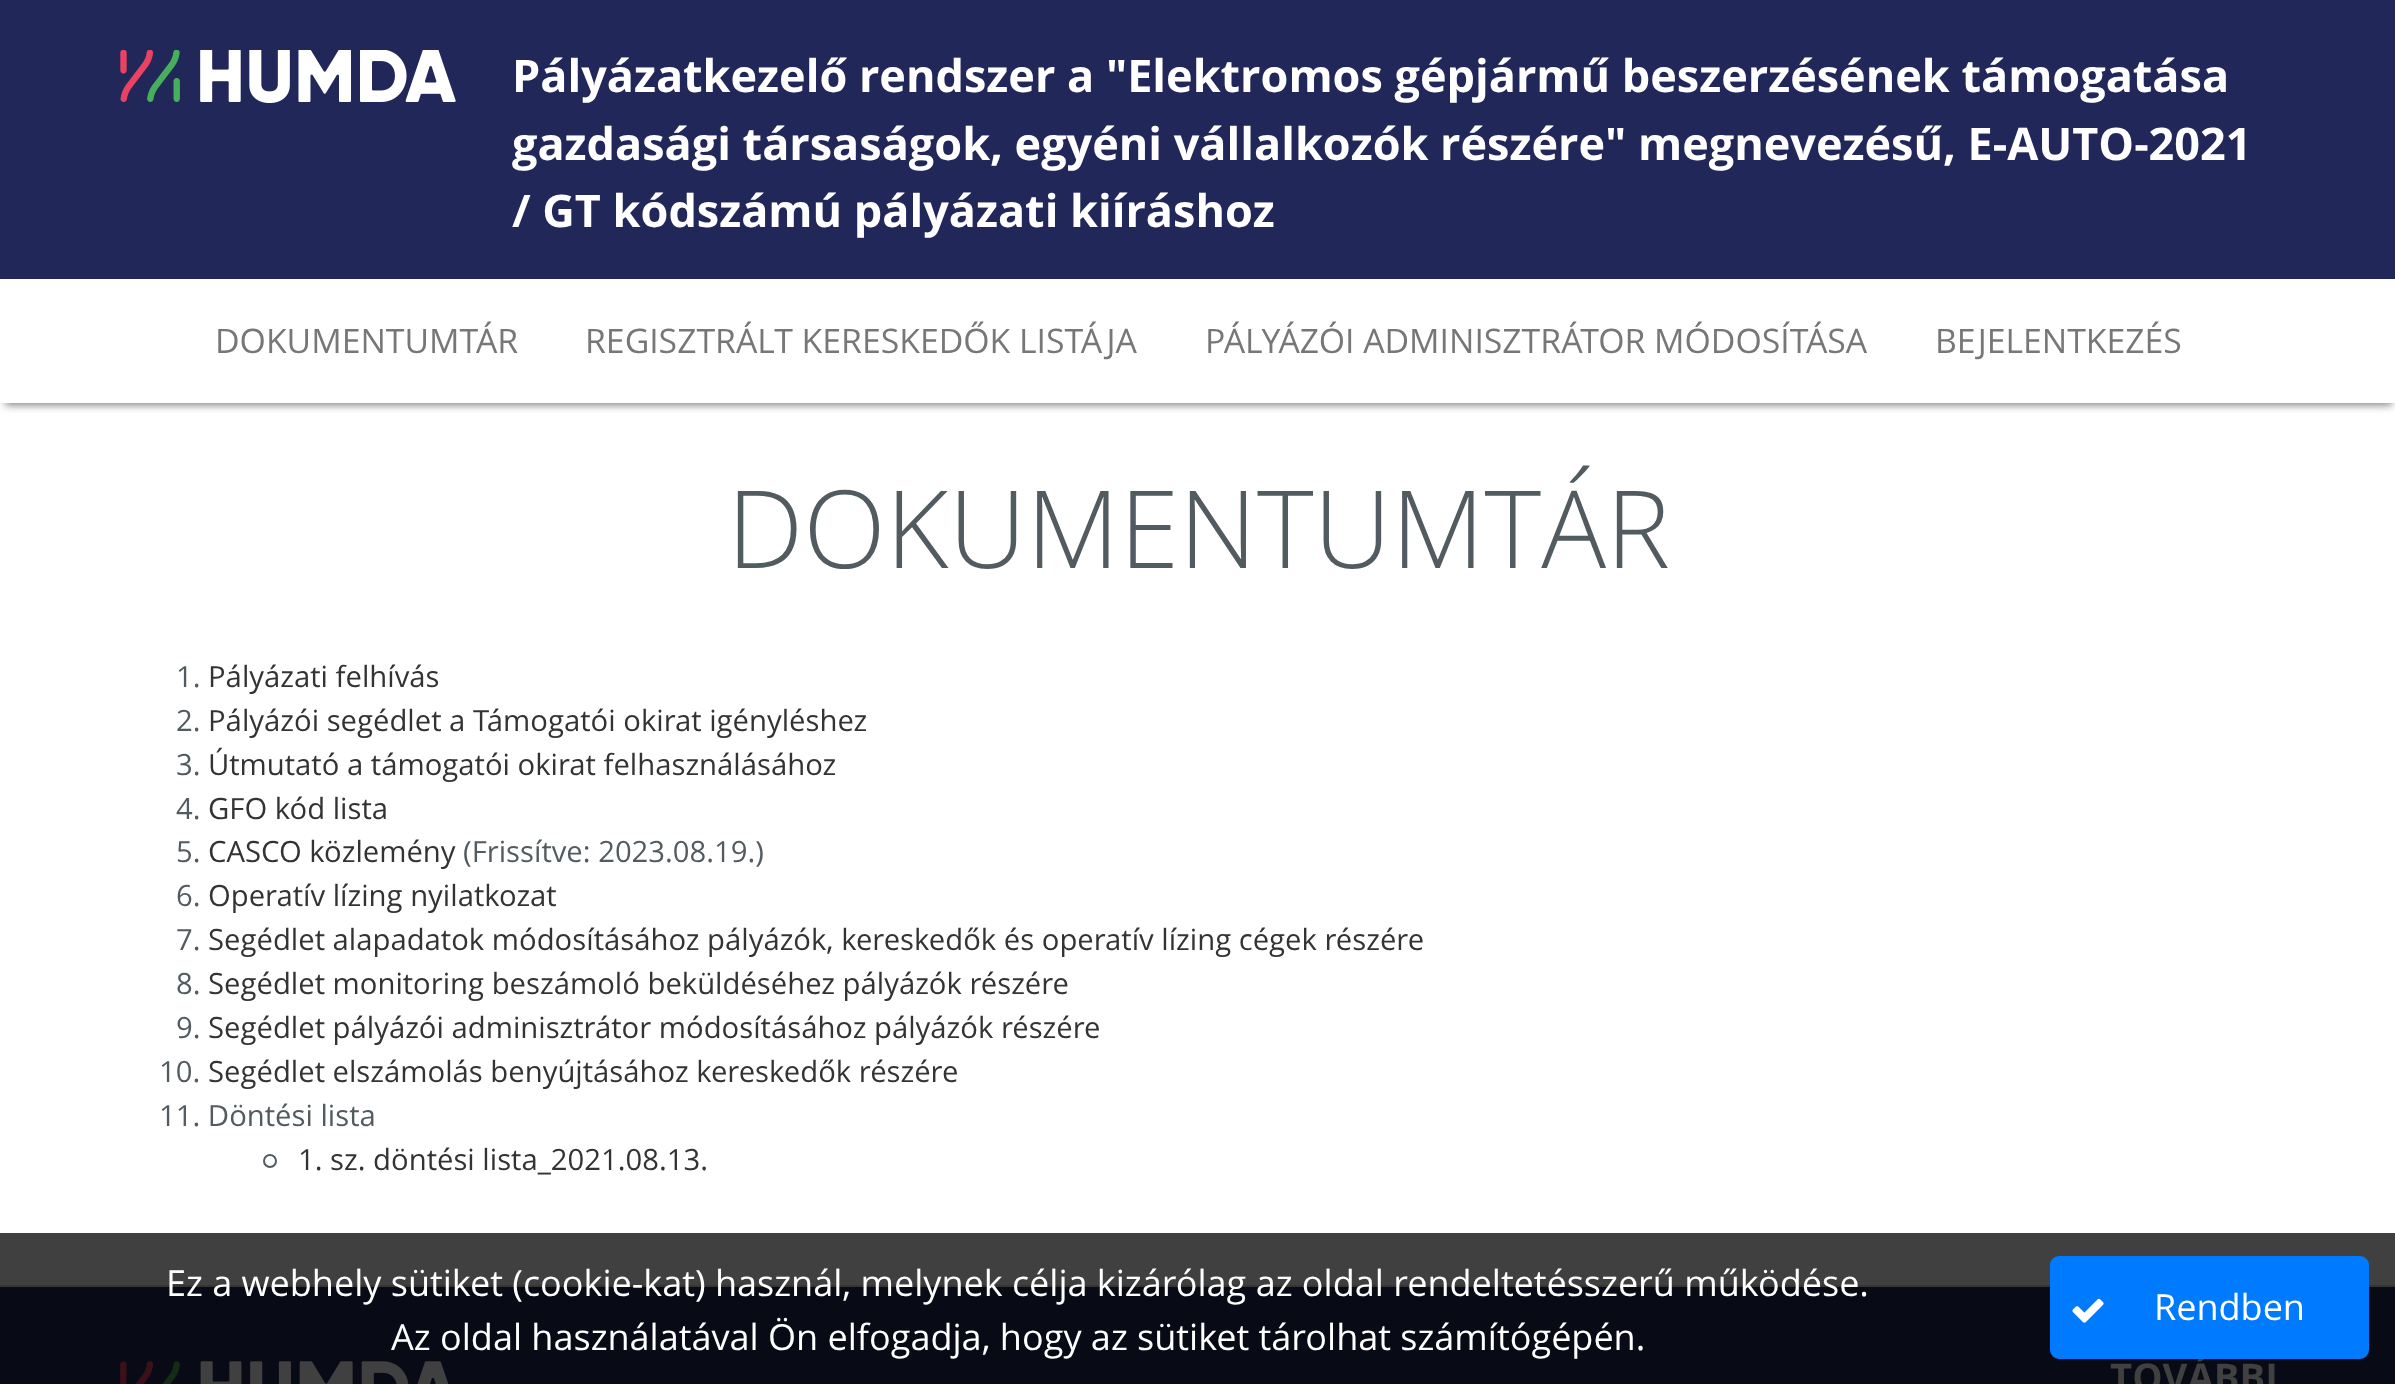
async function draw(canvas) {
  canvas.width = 2395
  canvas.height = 1384
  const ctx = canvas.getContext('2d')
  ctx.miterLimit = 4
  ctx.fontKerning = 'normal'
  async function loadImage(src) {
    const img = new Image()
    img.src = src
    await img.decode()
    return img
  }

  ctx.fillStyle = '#fff'
  ctx.fillRect(0, 0, 2395, 1384)
  ctx.fillStyle = '#404040'
  ctx.fillRect(0, 1233, 2395, 52)
  ctx.fillStyle = '#212759'
  ctx.fillRect(0, 0, 2395, 279)
  ctx.drawImage(await loadImage('image0.png'), 120, 50, 336, 53)
  ctx.font = 'bold 45px Open Sans'
  ctx.fillStyle = '#fff'
  ctx.fillText('Pályázatkezelő rendszer a "Elektromos gépjármű beszerzésének támogatása', 512, 92)
  ctx.fillText('gazdasági társaságok, egyéni vállalkozók részére" megnevezésű, E-AUTO-2021', 512, 160)
  ctx.fillText('/ GT kódszámú pályázati kiíráshoz', 512, 227)
  ctx.fillStyle = '#00000080'
  ctx.filter = 'blur(4.5px)'
  ctx.beginPath()
  ctx.rect(5, 290, 2387, 115)
  ctx.fill()
  ctx.filter = 'none'
  ctx.fillStyle = '#fff'
  ctx.fillRect(0, 281, 2395, 122)
  ctx.font = '33.75px Open Sans'
  ctx.fillStyle = '#777'
  ctx.fillText('DOKUMENTUMTÁR', 215, 353)
  ctx.fillText('REGISZTRÁLT KERESKEDŐK LISTÁJA', 585, 353)
  ctx.fillText('PÁLYÁZÓI ADMINISZTRÁTOR MÓDOSÍTÁSA', 1205, 353)
  ctx.fillText('BEJELENTKEZÉS', 1935, 353)
  ctx.font = '300 108px Open Sans'
  ctx.fillStyle = '#525c60'
  ctx.fillText('DOKUMENTUMTÁR', 727, 568)
  ctx.font = '29.25px Open Sans'
  ctx.fillText('1.', 176, 687)
  ctx.fillStyle = '#333'
  ctx.fillText('Pályázati felhívás', 208, 687)
  ctx.fillStyle = '#525c60'
  ctx.fillText('2.', 176, 731)
  ctx.fillStyle = '#333'
  ctx.fillText('Pályázói segédlet a Támogatói okirat igényléshez', 208, 731)
  ctx.fillStyle = '#525c60'
  ctx.fillText('3.', 176, 775)
  ctx.fillStyle = '#333'
  ctx.fillText('Útmutató a támogatói okirat felhasználásához', 208, 775)
  ctx.fillStyle = '#525c60'
  ctx.fillText('4.', 176, 819)
  ctx.fillStyle = '#333'
  ctx.fillText('GFO kód lista', 208, 819)
  ctx.fillStyle = '#525c60'
  ctx.fillText('5.', 176, 862)
  ctx.fillStyle = '#333'
  ctx.fillText('CASCO közlemény', 208, 862)
  ctx.fillStyle = '#525c60'
  ctx.fillText('(Frissítve: 2023.08.19.)', 463, 862)
  ctx.fillText('6.', 176, 906)
  ctx.fillStyle = '#333'
  ctx.fillText('Operatív lízing nyilatkozat', 208, 906)
  ctx.fillStyle = '#525c60'
  ctx.fillText('7.', 176, 950)
  ctx.fillStyle = '#333'
  ctx.fillText('Segédlet alapadatok módosításához pályázók, kereskedők és operatív lízing cégek részére', 208, 950)
  ctx.fillStyle = '#525c60'
  ctx.fillText('8.', 176, 994)
  ctx.fillStyle = '#333'
  ctx.fillText('Segédlet monitoring beszámoló beküldéséhez pályázók részére', 208, 994)
  ctx.fillStyle = '#525c60'
  ctx.fillText('9.', 176, 1038)
  ctx.fillStyle = '#333'
  ctx.fillText('Segédlet pályázói adminisztrátor módosításához pályázók részére', 208, 1038)
  ctx.fillStyle = '#525c60'
  ctx.fillText('10.', 159, 1082)
  ctx.fillStyle = '#333'
  ctx.fillText('Segédlet elszámolás benyújtásához kereskedők részére', 208, 1082)
  ctx.fillStyle = '#525c60'
  ctx.fillText('11. Döntési lista', 159, 1126)
  ctx.beginPath()
  ctx.arc(270, 1161, 6, 0, 2 * Math.PI)
  ctx.strokeStyle = '#525c60'
  ctx.lineWidth = 2
  ctx.stroke()
  ctx.fillStyle = '#333'
  ctx.fillText('1. sz. döntési lista_2021.08.13.', 298, 1170)
  ctx.fillStyle = '#080a16'
  ctx.fillRect(0, 1287, 2395, 97)
  ctx.fillStyle = '#353535'
  ctx.fillRect(0, 1285, 2395, 2)
  ctx.font = '36px Open Sans'
  ctx.fillStyle = '#fff'
  ctx.fillText('Ez a webhely sütiket (cookie-kat) használ, melynek célja kizárólag az oldal rendeltetésszerű működése.', 166, 1296)
  ctx.fillText('Az oldal használatával Ön elfogadja, hogy az sütiket tárolhat számítógépén.', 391, 1350)
  ctx.font = 'bold 38.25px Open Sans'
  ctx.fillStyle = '#404040'
  ctx.fillText('TOVÁBBI', 2110, 1391)
  ctx.fillStyle = '#007bff'
  ctx.beginPath()
  ctx.roundRect(2051, 1257, 317, 101, 8)
  ctx.fill()
  ctx.strokeStyle = '#007bff'
  ctx.stroke()
  ctx.drawImage(await loadImage('image1.png'), 2072, 1298, 32, 25)
  ctx.font = '36px Open Sans'
  ctx.fillStyle = '#fff'
  ctx.fillText('Rendben', 2154, 1320)
  ctx.drawImage(await loadImage('image2.png'), 120, 1361, 329, 23)
}

draw(document.querySelector('canvas'))
